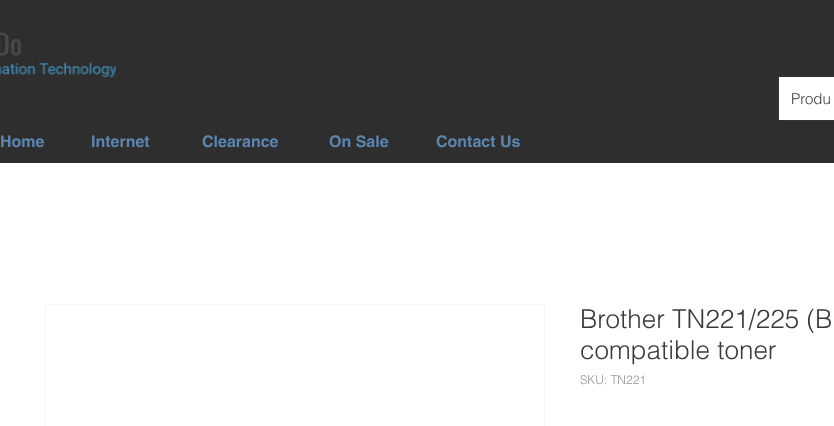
async function draw(canvas) {
  canvas.width = 834
  canvas.height = 426
  const ctx = canvas.getContext('2d')
  ctx.miterLimit = 4
  ctx.fontKerning = 'normal'
  async function loadImage(src) {
    const img = new Image()
    img.src = src
    await img.decode()
    return img
  }

  ctx.fillStyle = '#fff'
  ctx.fillRect(0, 0, 834, 426)
  ctx.fillStyle = '#2f2e2e'
  ctx.fillRect(0, 0, 834, 163)
  ctx.drawImage(await loadImage('image0.png'), 0, 32, 116, 46)
  ctx.strokeStyle = '#363535'
  ctx.strokeRect(778.5, 76.5, 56, 44)
  ctx.fillStyle = '#fff'
  ctx.fillRect(779, 77, 55, 43)
  ctx.font = '300 15px helvetica'
  ctx.fillStyle = '#3b3a3a'
  ctx.fillText('Produ', 791, 104)
  ctx.font = 'bold 16px helvetica'
  ctx.fillStyle = '#5b86b0'
  ctx.fillText('Home', 0, 147)
  ctx.fillText('Internet', 91, 147)
  ctx.fillText('Clearance', 202, 147)
  ctx.fillText('On Sale', 329, 147)
  ctx.fillText('Contact Us', 436, 147)
  ctx.strokeStyle = '#f7f7f7'
  ctx.strokeRect(45.5, 304.5, 499, 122)
  ctx.font = '300 26px helvetica'
  ctx.fillStyle = '#3b3a3a'
  ctx.fillText('Brother TN221/225 (B', 580, 328)
  ctx.fillText('compatible toner', 580, 359)
  ctx.font = '300 12px helvetica'
  ctx.fillStyle = '#949494'
  ctx.fillText('SKU: TN221', 580, 384)
}

draw(document.querySelector('canvas'))
